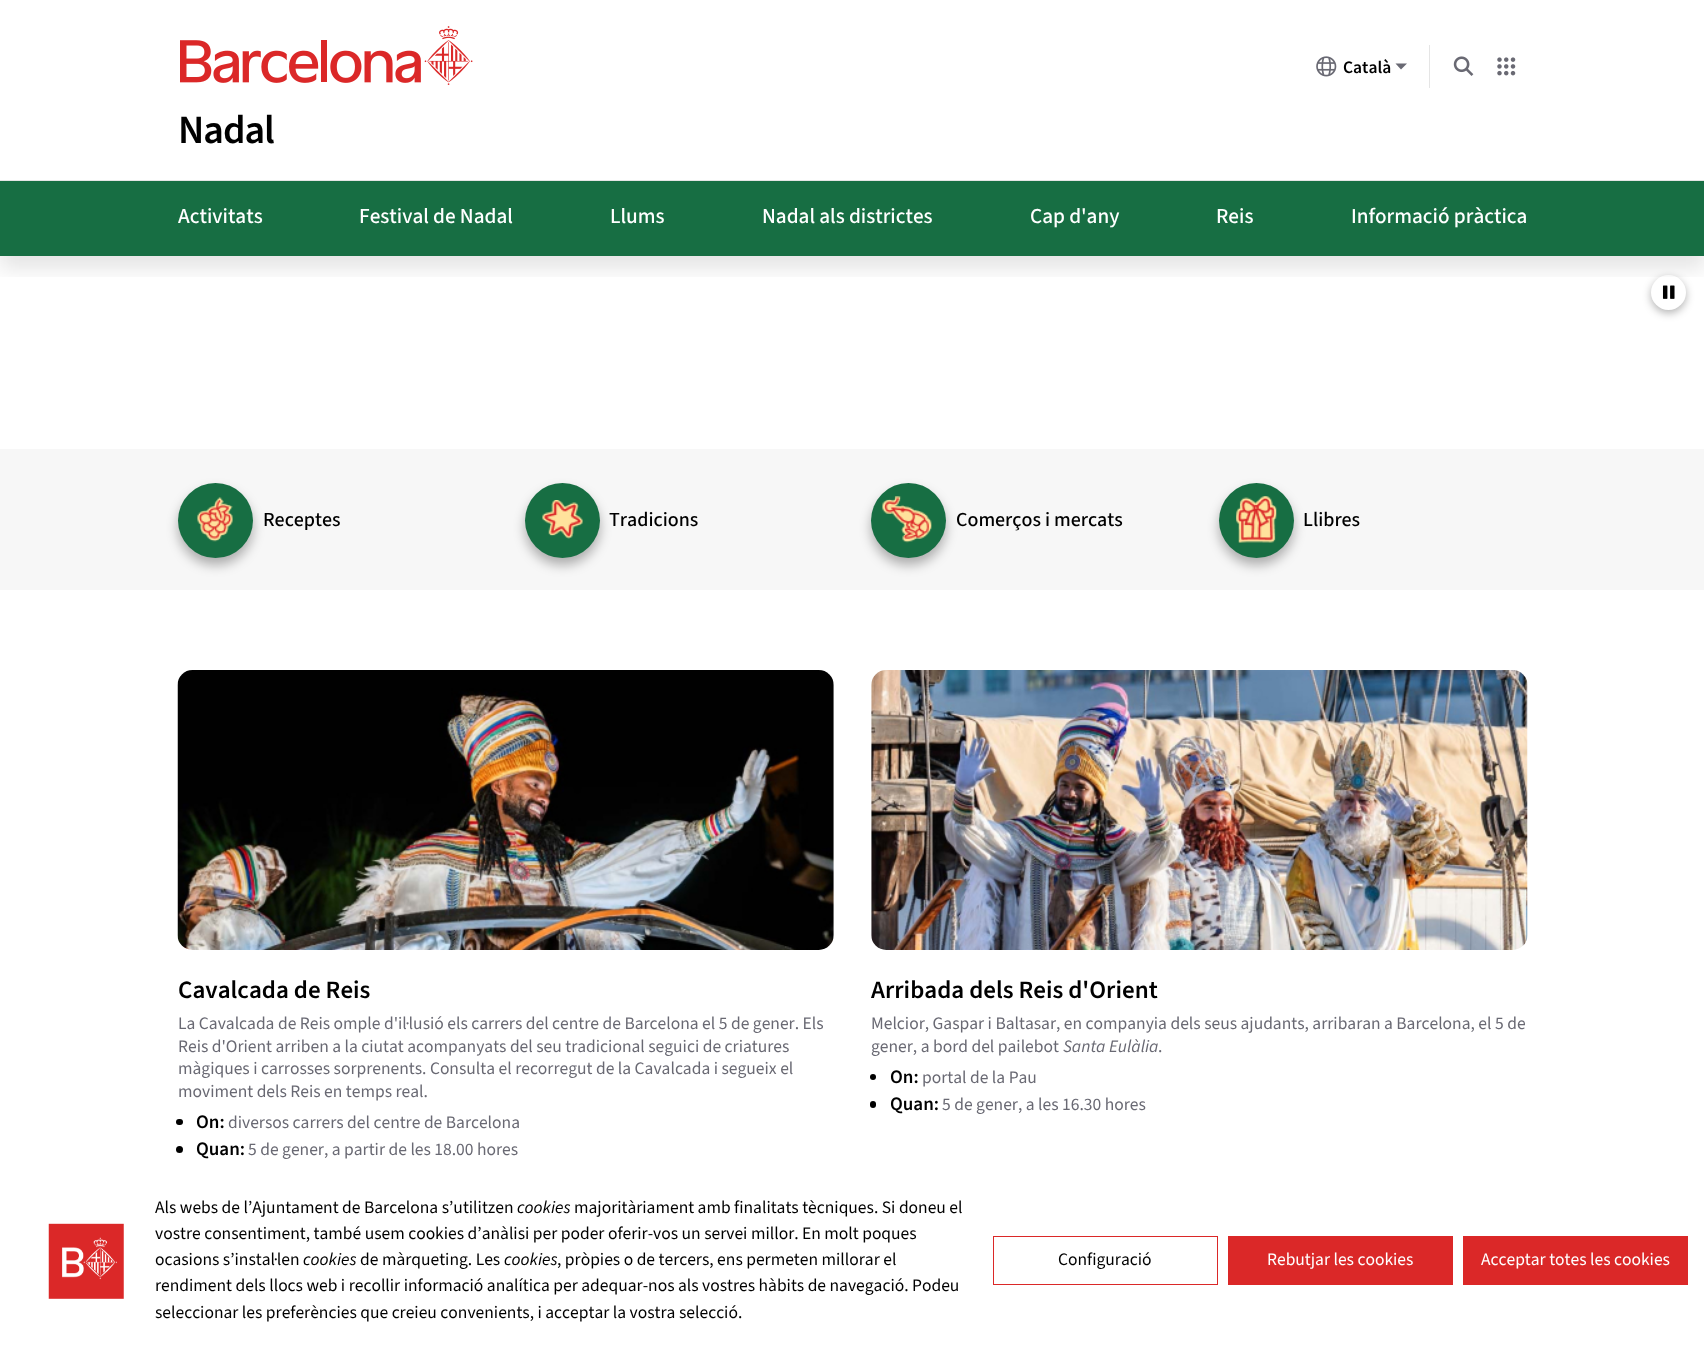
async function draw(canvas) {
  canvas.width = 1704
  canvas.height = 1361
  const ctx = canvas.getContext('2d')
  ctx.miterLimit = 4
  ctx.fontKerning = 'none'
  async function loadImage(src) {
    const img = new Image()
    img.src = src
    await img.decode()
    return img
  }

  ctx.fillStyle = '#fff'
  ctx.fillRect(0, 0, 1704, 1361)
  ctx.drawImage(await loadImage('image0.png'), 180, 26, 293, 59)
  ctx.fillStyle = '#e5e5e5'
  ctx.fillRect(1429, 45, 1, 43)
  ctx.drawImage(await loadImage('image1.png'), 1316, 56, 21, 21)
  ctx.font = '600 17.5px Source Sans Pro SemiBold'
  ctx.fillStyle = '#000'
  ctx.fillText('Català', 1343, 73)
  ctx.fillStyle = '#696973'
  ctx.beginPath()
  ctx.moveTo(1395.5, 63.5)
  ctx.lineTo(1401, 69.5)
  ctx.lineTo(1407, 63.5)
  ctx.closePath()
  ctx.fill()
  ctx.drawImage(await loadImage('image2.png'), 1453, 56, 21, 20)
  ctx.drawImage(await loadImage('image3.png'), 1497, 57, 19, 19)
  ctx.fillStyle = '#0000004d'
  ctx.filter = 'blur(4px)'
  ctx.beginPath()
  ctx.roundRect(1651, 278, 35, 35, 17.5)
  ctx.fill()
  ctx.filter = 'none'
  ctx.fillStyle = '#fff'
  ctx.beginPath()
  ctx.arc(1668.5, 292.5, 17.5, 0, 2 * Math.PI)
  ctx.fill()
  ctx.drawImage(await loadImage('image4.png'), 1662, 285, 13, 14)
  ctx.save()
  ctx.beginPath()
  ctx.rect(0, 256, 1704, 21)
  ctx.clip()
  ctx.fillStyle = '#0000001a'
  ctx.filter = 'blur(10px)'
  ctx.beginPath()
  ctx.rect(0, 123, 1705, 146)
  ctx.fill()
  ctx.filter = 'none'
  ctx.restore()
  ctx.letterSpacing = '-1px'
  ctx.font = '600 40px "Source Sans 3"'
  ctx.fillStyle = '#000'
  ctx.fillText('Nadal', 178, 143)
  ctx.fillStyle = '#176e43'
  ctx.fillRect(0, 181, 1704, 75)
  ctx.fillStyle = '#e5e5e5'
  ctx.fillRect(0, 180, 1704, 1)
  ctx.letterSpacing = '0px'
  ctx.font = '500 21.25px "Source Sans 3"'
  ctx.fillStyle = '#fff'
  ctx.fillText('Activitats', 178, 223)
  ctx.fillText('Festival de Nadal', 359, 223)
  ctx.fillText('Llums', 610, 223)
  ctx.fillText('Nadal als districtes', 762, 223)
  ctx.fillText('Cap d\'any', 1030, 223)
  ctx.fillText('Reis', 1216, 223)
  ctx.fillText('Informació pràctica', 1351, 223)
  ctx.fillStyle = '#f7f7f7'
  ctx.fillRect(0, 449, 1704, 141)
  ctx.fillStyle = '#0000004d'
  ctx.filter = 'blur(6px)'
  ctx.beginPath()
  ctx.roundRect(178, 490, 75, 75, 37.5)
  ctx.fill()
  ctx.filter = 'none'
  ctx.fillStyle = '#176e43'
  ctx.beginPath()
  ctx.arc(215.5, 520.5, 37.5, 0, 2 * Math.PI)
  ctx.fill()
  ctx.drawImage(await loadImage('image5.png'), 197, 497, 36, 45)
  ctx.font = '500 20px "Source Sans 3"'
  ctx.fillStyle = '#000'
  ctx.fillText('Receptes', 263, 526)
  ctx.fillStyle = '#0000004d'
  ctx.filter = 'blur(6px)'
  ctx.beginPath()
  ctx.roundRect(525, 490, 75, 75, 37.5)
  ctx.fill()
  ctx.filter = 'none'
  ctx.fillStyle = '#176e43'
  ctx.beginPath()
  ctx.arc(562.5, 520.5, 37.5, 0, 2 * Math.PI)
  ctx.fill()
  ctx.drawImage(await loadImage('image6.png'), 542, 500, 41, 39)
  ctx.fillStyle = '#000'
  ctx.fillText('Tradicions', 609, 526)
  ctx.fillStyle = '#0000004d'
  ctx.filter = 'blur(6px)'
  ctx.beginPath()
  ctx.roundRect(871, 490, 75, 75, 37.5)
  ctx.fill()
  ctx.filter = 'none'
  ctx.fillStyle = '#176e43'
  ctx.beginPath()
  ctx.arc(908.5, 520.5, 37.5, 0, 2 * Math.PI)
  ctx.fill()
  ctx.drawImage(await loadImage('image7.png'), 882, 496, 50, 47)
  ctx.fillStyle = '#000'
  ctx.fillText('Comerços i mercats', 956, 526)
  ctx.fillStyle = '#0000004d'
  ctx.filter = 'blur(6px)'
  ctx.beginPath()
  ctx.roundRect(1219, 490, 75, 75, 37.5)
  ctx.fill()
  ctx.filter = 'none'
  ctx.fillStyle = '#176e43'
  ctx.beginPath()
  ctx.arc(1256.5, 520.5, 37.5, 0, 2 * Math.PI)
  ctx.fill()
  ctx.drawImage(await loadImage('image8.png'), 1236, 496, 41, 47)
  ctx.fillStyle = '#000'
  ctx.fillText('Llibres', 1303, 526)
  ctx.drawImage(await loadImage('image9.png'), 177, 670, 657, 280)
  ctx.font = '600 25px "Source Sans 3"'
  ctx.fillText('Cavalcada de Reis', 178, 998)
  ctx.font = '17.5px "Source Sans 3"'
  ctx.fillStyle = '#696973'
  ctx.fillText('La Cavalcada de Reis omple d\'il·lusió els carrers del centre de Barcelona el 5 de gener. Els', 178, 1029)
  ctx.fillText('Reis d\'Orient arriben a la ciutat acompanyats del seu tradicional seguici de criatures', 178, 1052)
  ctx.fillText('màgiques i carrosses sorprenents. Consulta el recorregut de la Cavalcada i segueix el', 178, 1074)
  ctx.fillText('moviment dels Reis en temps real.', 178, 1097)
  ctx.fillStyle = '#000'
  ctx.beginPath()
  ctx.roundRect(176, 1119, 7, 6, 3)
  ctx.fill()
  ctx.font = '600 19px "Source Sans 3"'
  ctx.fillText('On:', 196, 1128)
  ctx.font = '17.5px "Source Sans 3"'
  ctx.fillStyle = '#696973'
  ctx.fillText('diversos carrers del centre de Barcelona', 228, 1128)
  ctx.fillStyle = '#000'
  ctx.beginPath()
  ctx.arc(179.5, 1149.5, 3.5, 0, 2 * Math.PI)
  ctx.fill()
  ctx.font = '600 19px "Source Sans 3"'
  ctx.fillText('Quan:', 196, 1155)
  ctx.font = '17.5px "Source Sans 3"'
  ctx.fillStyle = '#696973'
  ctx.fillText('5 de gener, a partir de les 18.00 hores', 248, 1155)
  ctx.drawImage(await loadImage('image10.png'), 871, 670, 657, 280)
  ctx.font = '600 25px "Source Sans 3"'
  ctx.fillStyle = '#000'
  ctx.fillText('Arribada dels Reis d\'Orient', 871, 998)
  ctx.font = '17.5px "Source Sans 3"'
  ctx.fillStyle = '#696973'
  ctx.fillText('Melcior, Gaspar i Baltasar, en companyia dels seus ajudants, arribaran', 871, 1029)
  ctx.fillText('a Barcelona, el 5 de', 1384, 1029)
  ctx.fillText('gener, a bord del pailebot', 871, 1052)
  ctx.font = 'italic 17.5px "Source Sans 3"'
  ctx.fillText('Santa Eulàlia', 1063, 1052)
  ctx.font = '17.5px "Source Sans 3"'
  ctx.fillText('.', 1158, 1052)
  ctx.fillStyle = '#000'
  ctx.beginPath()
  ctx.arc(873, 1077, 3, 0, 2 * Math.PI)
  ctx.fill()
  ctx.font = '600 19px "Source Sans 3"'
  ctx.fillText('On:', 890, 1083)
  ctx.font = '17.5px "Source Sans 3"'
  ctx.fillStyle = '#696973'
  ctx.fillText('portal de la Pau', 922, 1083)
  ctx.fillStyle = '#000'
  ctx.beginPath()
  ctx.roundRect(870, 1101, 6, 7, 3)
  ctx.fill()
  ctx.font = '600 19px "Source Sans 3"'
  ctx.fillText('Quan:', 890, 1110)
  ctx.font = '17.5px "Source Sans 3"'
  ctx.fillStyle = '#696973'
  ctx.fillText('5 de gener, a les 16.30 hores', 942, 1110)
  ctx.drawImage(await loadImage('image11.png'), 48, 1223, 76, 76)
  ctx.fillStyle = '#000'
  ctx.fillText('Als webs de l’Ajuntament de Barcelona s’utilitzen', 155, 1213)
  ctx.font = 'italic 17.5px "Source Sans 3"'
  ctx.fillText('cookies', 517, 1213)
  ctx.font = '17.5px "Source Sans 3"'
  ctx.fillText('majoritàriament amb finalitats tècniques. Si doneu el', 574, 1213)
  ctx.fillText('vostre consentiment, també usem cookies d’anàlisi per poder oferir-vos un servei millor.', 155, 1239)
  ctx.fillText('En molt poques', 802, 1239)
  ctx.fillText('ocasions s’instal·len', 155, 1265)
  ctx.font = 'italic 17.5px "Source Sans 3"'
  ctx.fillText('cookies', 303, 1265)
  ctx.font = '17.5px "Source Sans 3"'
  ctx.fillText('de màrqueting. Les', 360, 1265)
  ctx.font = 'italic 17.5px "Source Sans 3"'
  ctx.fillText('cookies', 504, 1265)
  ctx.font = '17.5px "Source Sans 3"'
  ctx.fillText(', pròpies o de tercers, ens permeten millorar el', 557, 1265)
  ctx.fillText('rendiment dels llocs web i recollir informació analítica per adequar-nos als vostres hàbits de navegació. Podeu', 155, 1291)
  ctx.fillText('seleccionar les preferències que creieu convenients, i acceptar la vostra', 155, 1318)
  ctx.fillText('selecció.', 679, 1318)
  ctx.strokeStyle = '#db2828'
  ctx.strokeRect(993.5, 1236.5, 224, 48)
  ctx.fillText('Configuració', 1058, 1265)
  ctx.fillStyle = '#db2828'
  ctx.fillRect(1228, 1236, 225, 49)
  ctx.fillStyle = '#fff'
  ctx.fillText('Rebutjar les cookies', 1267, 1265)
  ctx.fillStyle = '#db2828'
  ctx.fillRect(1463, 1236, 225, 49)
  ctx.fillStyle = '#fff'
  ctx.fillText('Acceptar totes les cookies', 1481, 1265)
}

draw(document.querySelector('canvas'))
